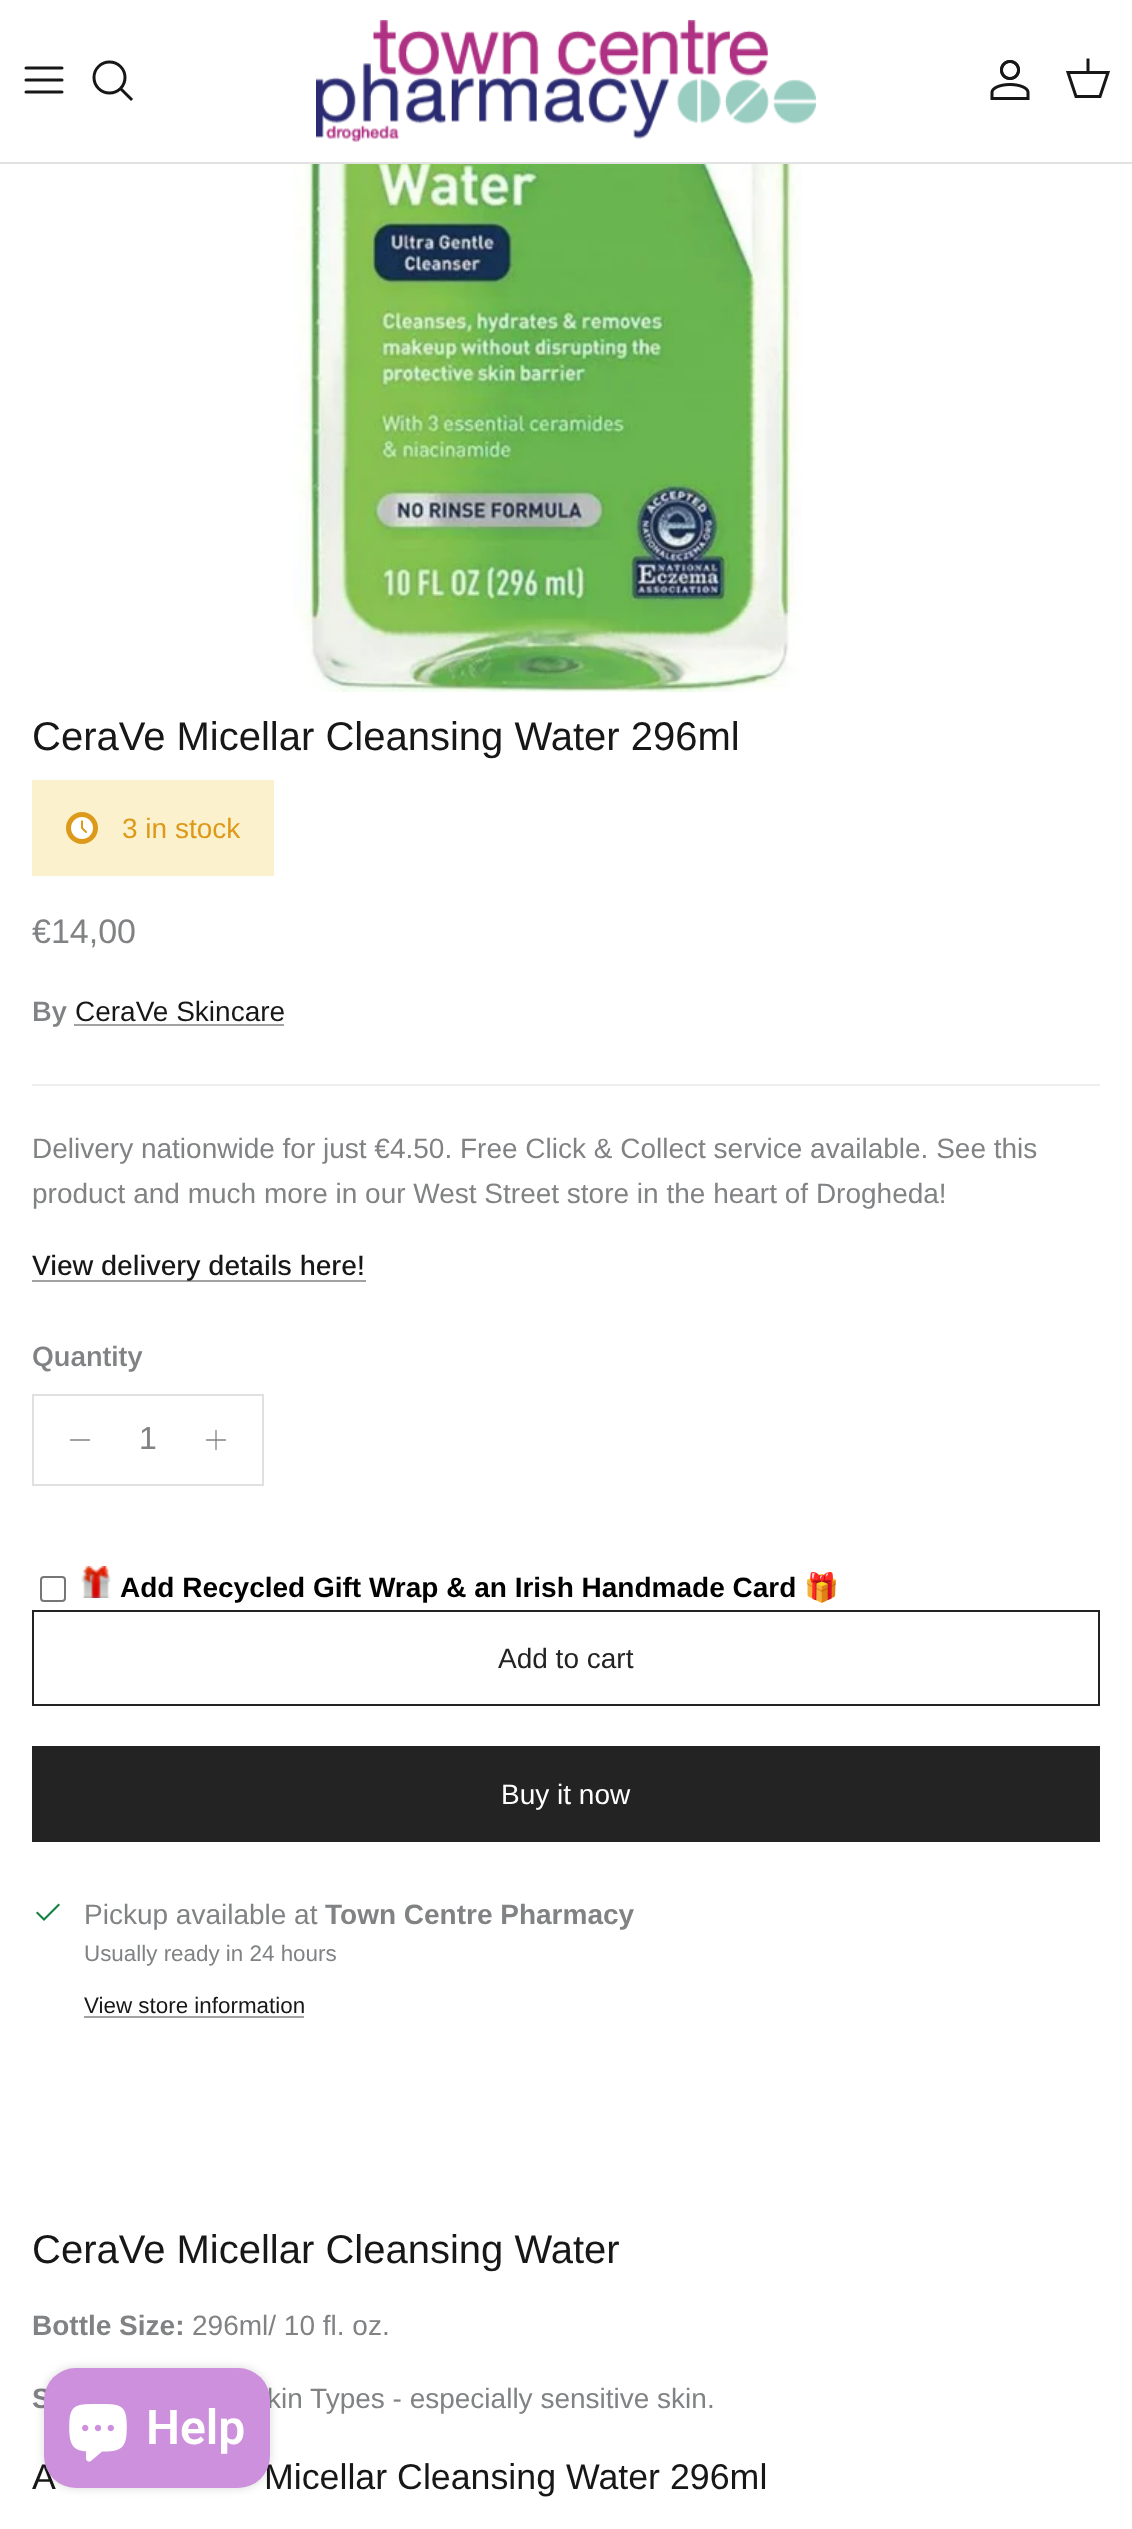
async function draw(canvas) {
  canvas.width = 1132
  canvas.height = 2529
  const ctx = canvas.getContext('2d')
  ctx.miterLimit = 4
  ctx.fontKerning = 'normal'
  async function loadImage(src) {
    const img = new Image()
    img.src = src
    await img.decode()
    return img
  }

  ctx.fillStyle = '#fff'
  ctx.fillRect(0, 0, 1132, 2529)
  ctx.fillStyle = '#e2e2e2'
  ctx.fillRect(0, 162, 1132, 2)
  ctx.beginPath()
  ctx.moveTo(26, 80)
  ctx.lineTo(62, 80)
  ctx.moveTo(26, 68)
  ctx.lineTo(62, 68)
  ctx.moveTo(26, 92)
  ctx.lineTo(62, 92)
  ctx.strokeStyle = '#171717'
  ctx.lineWidth = 3
  ctx.lineCap = 'round'
  ctx.lineJoin = 'round'
  ctx.stroke()
  ctx.beginPath()
  ctx.arc(109.5, 77.5, 15.5, 0, 2 * Math.PI)
  ctx.stroke()
  ctx.beginPath()
  ctx.moveTo(122, 90)
  ctx.lineTo(131, 99)
  ctx.lineCap = 'square'
  ctx.lineJoin = 'miter'
  ctx.stroke()
  ctx.drawImage(await loadImage('image0.png'), 316, 20, 500, 122)
  ctx.drawImage(await loadImage('image1.png'), 990, 60, 40, 40)
  ctx.beginPath()
  ctx.moveTo(1068, 72.5)
  ctx.lineTo(1108, 72.5)
  ctx.lineTo(1100, 96.5)
  ctx.lineTo(1076, 96.5)
  ctx.closePath()
  ctx.lineCap = 'butt'
  ctx.stroke()
  ctx.beginPath()
  ctx.moveTo(1088, 72)
  ctx.lineTo(1088, 60)
  ctx.lineCap = 'square'
  ctx.stroke()
  ctx.drawImage(await loadImage('image2.png'), 292, 164, 510, 528)
  ctx.font = '40px Arimo'
  ctx.fillStyle = '#171717'
  ctx.fillText('CeraVe Micellar Cleansing Water 296ml', 32, 750)
  ctx.fillStyle = '#fcf1cd'
  ctx.fillRect(32, 780, 242, 96)
  ctx.fillStyle = '#dd9a1a'
  ctx.beginPath()
  ctx.arc(82, 828, 16, 0, 2 * Math.PI)
  ctx.fill()
  ctx.drawImage(await loadImage('image3.png'), 71, 817, 22, 22)
  ctx.font = '28px Arimo'
  ctx.fillText('3 in stock', 122, 838)
  ctx.font = '34px Arimo'
  ctx.fillStyle = '#808284'
  ctx.fillText('€14,00', 32, 943)
  ctx.font = '600 28px Arimo'
  ctx.fillText('By', 32, 1021)
  ctx.font = '28px Arimo'
  ctx.fillStyle = '#171717'
  ctx.fillText('CeraVe Skincare', 75, 1021)
  ctx.fillStyle = '#a2a2a2'
  ctx.fillRect(74, 1024, 210, 2)
  ctx.fillStyle = '#edeeee'
  ctx.fillRect(32, 1084, 1068, 2)
  ctx.fillStyle = '#808284'
  ctx.fillText('Delivery nationwide for just €4.50. Free Click & Collect service available. See this', 32, 1158)
  ctx.fillText('product and much more in our West Street store in the heart of Drogheda!', 32, 1203)
  ctx.fillStyle = '#a2a2a2'
  ctx.fillRect(32, 1280, 334, 2)
  ctx.font = '500 28px Arimo'
  ctx.fillStyle = '#171717'
  ctx.fillText('View delivery details here!', 32, 1275)
  ctx.font = '600 28px Arimo'
  ctx.fillStyle = '#808284'
  ctx.fillText('Quantity', 32, 1366)
  ctx.strokeStyle = '#dfe0e0'
  ctx.lineWidth = 2
  ctx.strokeRect(33, 1395, 230, 90)
  ctx.beginPath()
  ctx.moveTo(70.5, 1440)
  ctx.lineTo(89.5, 1440)
  ctx.strokeStyle = '#808284'
  ctx.lineWidth = 1.3
  ctx.lineCap = 'round'
  ctx.lineJoin = 'round'
  ctx.stroke()
  ctx.font = '32px Arimo'
  ctx.fillText('1', 139, 1449)
  ctx.beginPath()
  ctx.moveTo(216, 1430.5)
  ctx.lineTo(216, 1449.5)
  ctx.moveTo(206.5, 1440)
  ctx.lineTo(225.5, 1440)
  ctx.stroke()
  ctx.beginPath()
  ctx.roundRect(41, 1577, 24, 24, 3)
  ctx.strokeStyle = '#767676'
  ctx.lineWidth = 2
  ctx.lineJoin = 'miter'
  ctx.stroke()
  ctx.drawImage(await loadImage('image4.png'), 81, 1566, 30, 32)
  ctx.font = 'bold 28px Arimo'
  ctx.fillStyle = '#000'
  ctx.fillText('Add Recycled Gift Wrap & an Irish Handmade Card', 120, 1597)
  ctx.font = '28px Noto Color Emoji'
  ctx.fillStyle = '#808284'
  ctx.fillText('🎁', 804, 1597)
  ctx.strokeStyle = '#232323'
  ctx.strokeRect(33, 1611, 1066, 94)
  ctx.font = '28px Arimo'
  ctx.fillStyle = '#232323'
  ctx.fillText('Add to cart', 498, 1668)
  ctx.fillRect(32, 1746, 1068, 96)
  ctx.fillStyle = '#fff'
  ctx.fillText('Buy it now', 501, 1804)
  ctx.fillStyle = '#108043'
  ctx.beginPath()
  ctx.moveTo(58.5, 1903.5)
  ctx.lineTo(60, 1905)
  ctx.lineTo(44, 1921)
  ctx.lineTo(36, 1913)
  ctx.lineTo(37.5, 1911.5)
  ctx.lineTo(44, 1918)
  ctx.closePath()
  ctx.fill()
  ctx.fillStyle = '#808284'
  ctx.fillText('Pickup available at', 84, 1924)
  ctx.font = 'bold 28px Arimo'
  ctx.fillText('Town Centre Pharmacy', 325, 1924)
  ctx.font = '22.4px Arimo'
  ctx.fillText('Usually ready in 24 hours', 84, 1961)
  ctx.fillStyle = '#171717'
  ctx.fillText('View store information', 84, 2013)
  ctx.fillStyle = '#a2a2a2'
  ctx.fillRect(84, 2016, 220, 2)
  ctx.font = '40px Arimo'
  ctx.fillStyle = '#171717'
  ctx.fillText('CeraVe Micellar Cleansing Water', 32, 2263)
  ctx.font = 'bold 28px Arimo'
  ctx.fillStyle = '#808284'
  ctx.fillText('Bottle Size:', 32, 2335)
  ctx.font = '28px Arimo'
  ctx.fillText('296ml/ 10 fl. oz.', 192, 2335)
  ctx.font = 'bold 28px Arimo'
  ctx.fillText('S', 32, 2408)
  ctx.font = '28px Arimo'
  ctx.fillText('kin Types - especially sensitive skin.', 267, 2408)
  ctx.font = '35.75px Arimo'
  ctx.fillStyle = '#171717'
  ctx.fillText('A', 32, 2489)
  ctx.fillText('Micellar Cleansing Water 296ml', 264, 2489)
  ctx.fillStyle = '#00000026'
  ctx.filter = 'blur(5px)'
  ctx.beginPath()
  ctx.roundRect(44, 2368, 226, 120, 32)
  ctx.fill()
  ctx.filter = 'none'
  ctx.fillStyle = '#cc90dc'
  ctx.beginPath()
  ctx.roundRect(44, 2368, 226, 120, 32)
  ctx.fill()
  ctx.drawImage(await loadImage('image5.png'), 69, 2404, 58, 58)
  ctx.font = '600 48px Roboto'
  ctx.fillStyle = '#fff'
  ctx.fillText('Help', 146, 2444)
}

draw(document.querySelector('canvas'))
